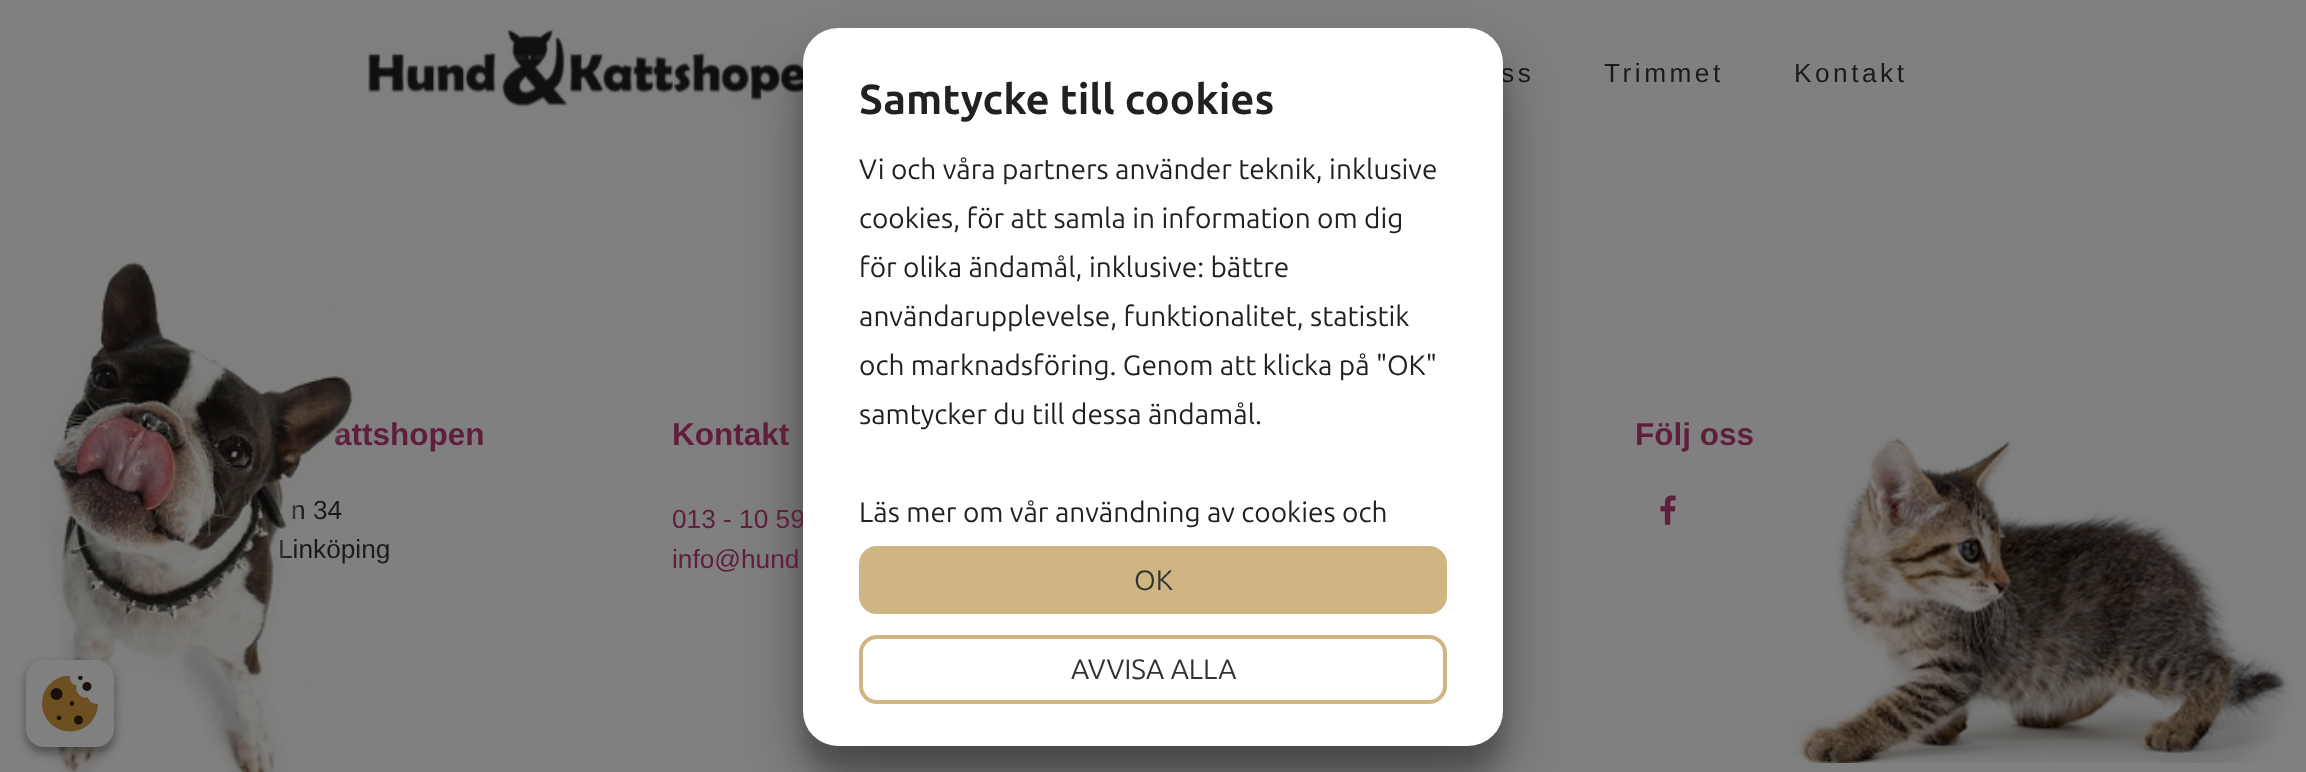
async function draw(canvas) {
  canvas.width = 2306
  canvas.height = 772
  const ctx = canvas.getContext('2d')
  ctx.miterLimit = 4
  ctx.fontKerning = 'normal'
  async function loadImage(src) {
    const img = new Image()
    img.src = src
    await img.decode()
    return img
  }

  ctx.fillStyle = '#808080'
  ctx.fillRect(0, 0, 2306, 772)
  ctx.drawImage(await loadImage('image0.png'), 368, 29, 462, 78)
  ctx.letterSpacing = '3.5px'
  ctx.font = '26.25px Liberation Sans'
  ctx.fillStyle = '#1a1a1a'
  ctx.fillText('ss', 1501, 82)
  ctx.fillText('Trimmet', 1604, 82)
  ctx.fillText('Kontakt', 1794, 82)
  ctx.fillStyle = '#00000038'
  ctx.filter = 'blur(10.5px)'
  ctx.beginPath()
  ctx.roundRect(803, 54, 700, 718, 35)
  ctx.fill()
  ctx.filter = 'none'
  ctx.fillStyle = '#0000004d'
  ctx.filter = 'blur(33px)'
  ctx.beginPath()
  ctx.roundRect(803, 61, 700, 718, 35)
  ctx.fill()
  ctx.filter = 'none'
  ctx.letterSpacing = '0px'
  ctx.fillStyle = '#5f1e3c'
  ctx.fillText('013 - 10 59', 672, 528)
  ctx.fillStyle = '#fff'
  ctx.beginPath()
  ctx.roundRect(803, 28, 700, 718, 35)
  ctx.fill()
  ctx.font = 'bold 42px Ubuntu'
  ctx.fillStyle = '#212121'
  ctx.fillText('Samtycke till cookies', 859, 114)
  ctx.font = '28px Ubuntu'
  ctx.fillText('Vi och våra partners använder teknik, inklusive', 859, 179)
  ctx.fillText('cookies, för att samla in information om dig', 859, 228)
  ctx.fillText('för olika ändamål, inklusive: bättre', 859, 277)
  ctx.fillText('användarupplevelse, funktionalitet, statistik', 859, 326)
  ctx.fillText('och marknadsföring. Genom att klicka på "OK"', 859, 375)
  ctx.fillText('samtycker du till dessa ändamål.', 859, 424)
  ctx.fillText('Läs mer om vår användning av cookies och', 859, 522)
  ctx.fillStyle = '#ceb582'
  ctx.beginPath()
  ctx.roundRect(861, 548, 584, 64, 16)
  ctx.fill()
  ctx.strokeStyle = '#ceb582'
  ctx.lineWidth = 4
  ctx.stroke()
  ctx.fillStyle = '#333'
  ctx.fillText('OK', 1134, 590)
  ctx.beginPath()
  ctx.roundRect(861, 637, 584, 65, 16)
  ctx.stroke()
  ctx.fillText('AVVISA ALLA', 1071, 679)
  ctx.font = 'bold 31.5px Liberation Sans'
  ctx.fillStyle = '#5f1e3c'
  ctx.fillText('attshopen', 334, 445)
  ctx.font = '26.25px Liberation Sans'
  ctx.fillStyle = '#1a1a1a'
  ctx.fillText('n 34', 291, 519)
  ctx.fillText('Linköping', 278, 558)
  ctx.drawImage(await loadImage('image1.png'), 36, 262, 344, 510)
  ctx.font = 'bold 31.5px Liberation Sans'
  ctx.fillStyle = '#5f1e3c'
  ctx.fillText('Kontakt', 672, 445)
  ctx.font = '26.25px Liberation Sans'
  ctx.fillText('info@hund', 672, 568)
  ctx.font = 'bold 31.5px Liberation Sans'
  ctx.fillText('Följ oss', 1635, 445)
  ctx.drawImage(await loadImage('image2.png'), 1660, 495, 16, 30)
  ctx.drawImage(await loadImage('image3.png'), 1792, 435, 503, 328)
  ctx.fillStyle = '#0000003b'
  ctx.filter = 'blur(5px)'
  ctx.beginPath()
  ctx.roundRect(26, 665, 88, 88, 18)
  ctx.fill()
  ctx.filter = 'none'
  ctx.fillStyle = '#00000029'
  ctx.filter = 'blur(5px)'
  ctx.beginPath()
  ctx.roundRect(26, 665, 88, 88, 18)
  ctx.fill()
  ctx.filter = 'none'
  ctx.fillStyle = '#808080'
  ctx.beginPath()
  ctx.roundRect(26, 660, 88, 87, 18)
  ctx.fill()
  ctx.drawImage(await loadImage('image4.png'), 42, 676, 56, 56)
}

draw(document.querySelector('canvas'))
